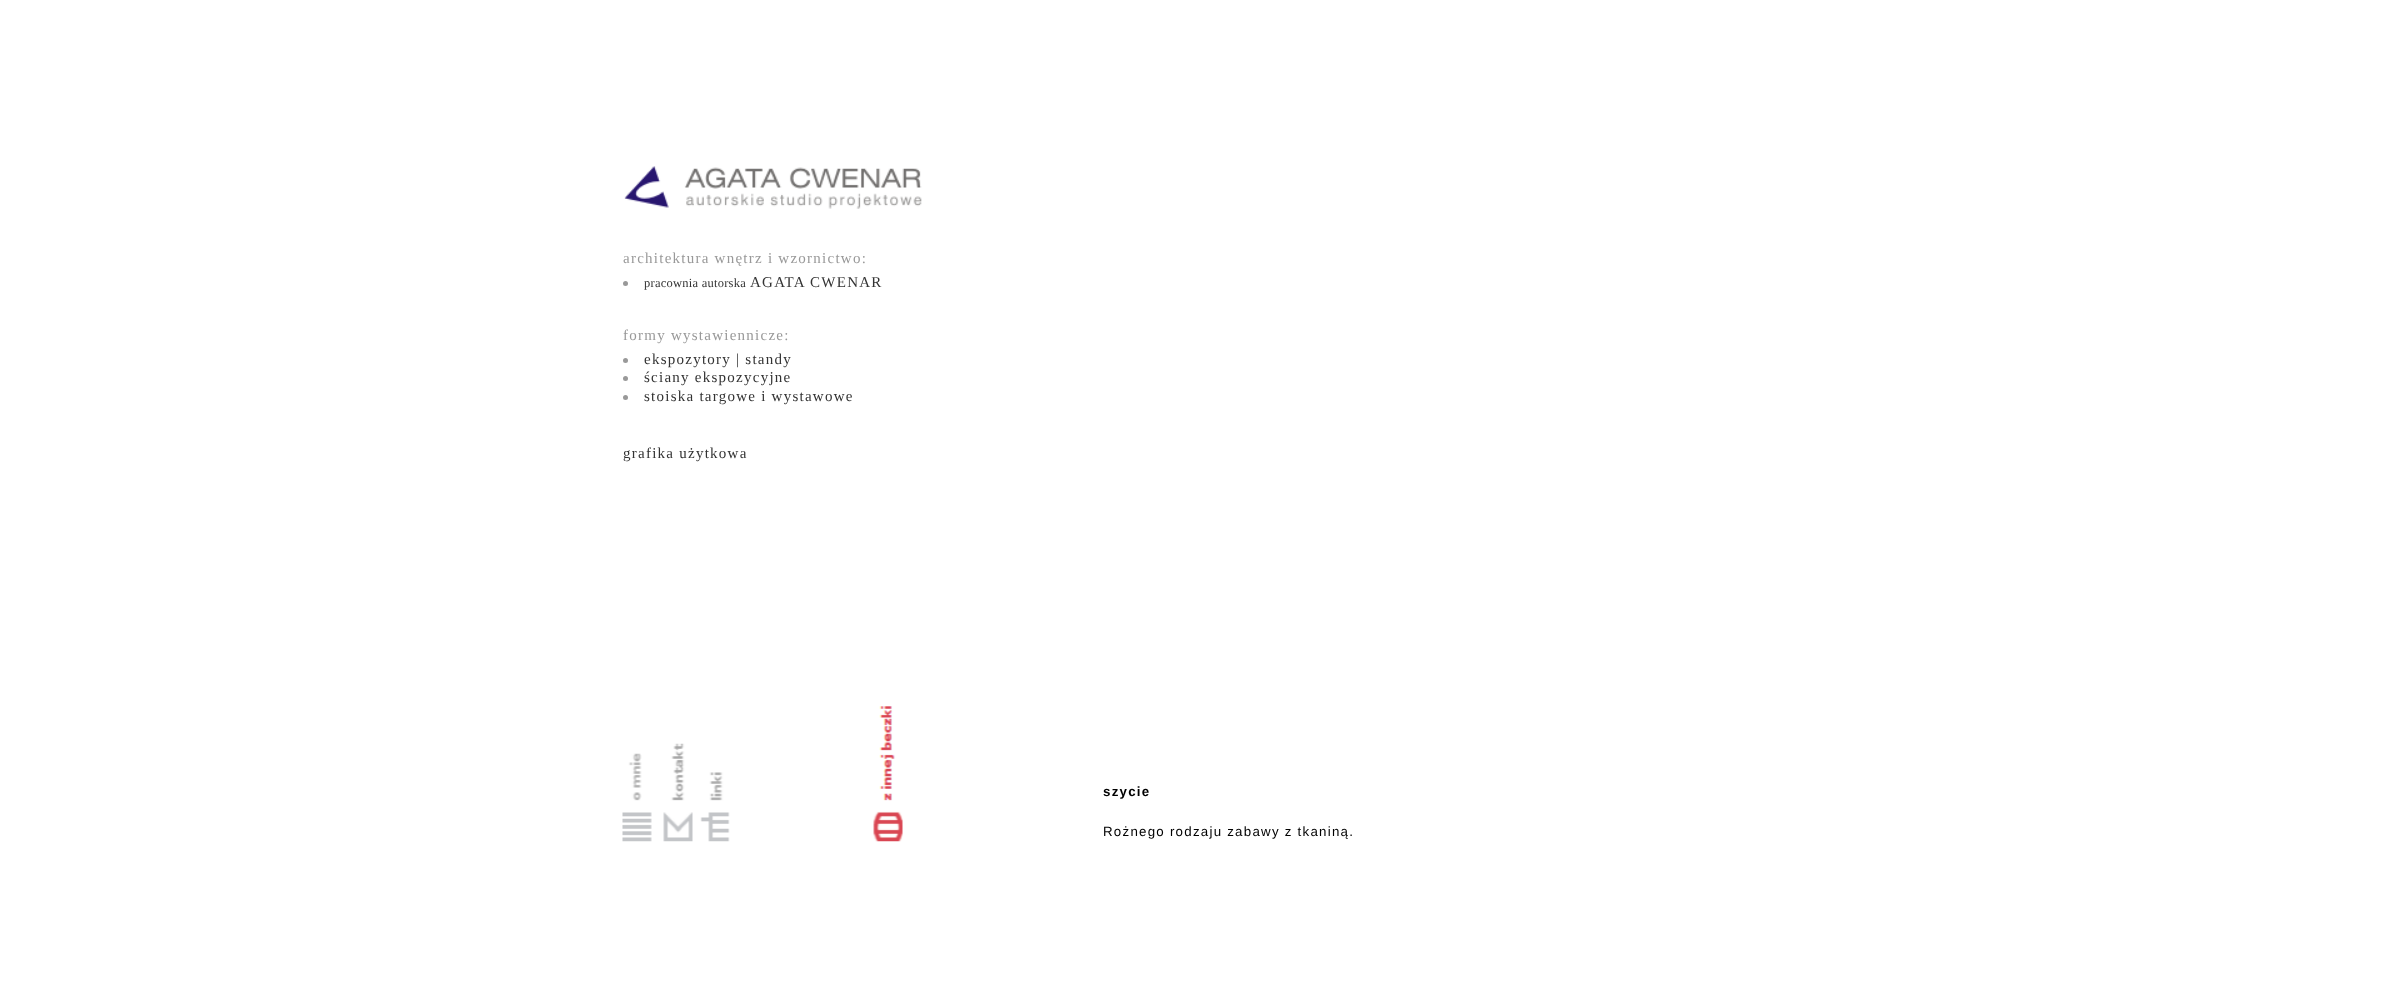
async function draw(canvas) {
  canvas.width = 2390
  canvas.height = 991
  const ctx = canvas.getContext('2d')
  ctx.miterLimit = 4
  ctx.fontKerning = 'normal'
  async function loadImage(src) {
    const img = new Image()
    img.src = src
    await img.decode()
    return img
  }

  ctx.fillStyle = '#fff'
  ctx.fillRect(0, 0, 2390, 991)
  ctx.drawImage(await loadImage('image0.png'), 624, 166, 298, 43)
  ctx.letterSpacing = '1.25px'
  ctx.font = '15px Liberation Serif'
  ctx.fillStyle = '#999'
  ctx.fillText('architektura wnętrz i wzornictwo:', 623, 263)
  ctx.beginPath()
  ctx.arc(625.5, 283.5, 2.5, 0, 2 * Math.PI)
  ctx.fill()
  ctx.letterSpacing = '0.25px'
  ctx.font = '12.5px Liberation Serif'
  ctx.fillStyle = '#333'
  ctx.fillText('pracownia autorska', 644, 287)
  ctx.letterSpacing = '1.25px'
  ctx.font = '15px Liberation Serif'
  ctx.fillText('AGATA CWENAR', 750, 287)
  ctx.fillStyle = '#999'
  ctx.fillText('formy wystawiennicze:', 623, 340)
  ctx.beginPath()
  ctx.arc(625.5, 360.5, 2.5, 0, 2 * Math.PI)
  ctx.fill()
  ctx.fillStyle = '#333'
  ctx.fillText('ekspozytory | standy', 644, 364)
  ctx.fillStyle = '#999'
  ctx.beginPath()
  ctx.arc(625.5, 378.5, 2.5, 0, 2 * Math.PI)
  ctx.fill()
  ctx.fillStyle = '#333'
  ctx.fillText('ściany ekspozycyjne', 644, 382)
  ctx.fillStyle = '#999'
  ctx.beginPath()
  ctx.arc(625.5, 397.5, 2.5, 0, 2 * Math.PI)
  ctx.fill()
  ctx.fillStyle = '#333'
  ctx.fillText('stoiska targowe i wystawowe', 644, 401)
  ctx.fillText('grafika użytkowa', 623, 458)
  ctx.drawImage(await loadImage('image1.png'), 622, 753, 30, 89)
  ctx.drawImage(await loadImage('image2.png'), 663, 743, 30, 99)
  ctx.drawImage(await loadImage('image3.png'), 700, 772, 30, 70)
  ctx.drawImage(await loadImage('image4.png'), 873, 706, 30, 136)
  ctx.font = 'bold 13.3px Liberation Sans'
  ctx.fillStyle = '#000'
  ctx.fillText('szycie', 1103, 796)
  ctx.font = '13.3px Liberation Sans'
  ctx.fillText('Rożnego rodzaju zabawy z tkaniną.', 1103, 836)
}

draw(document.querySelector('canvas'))
